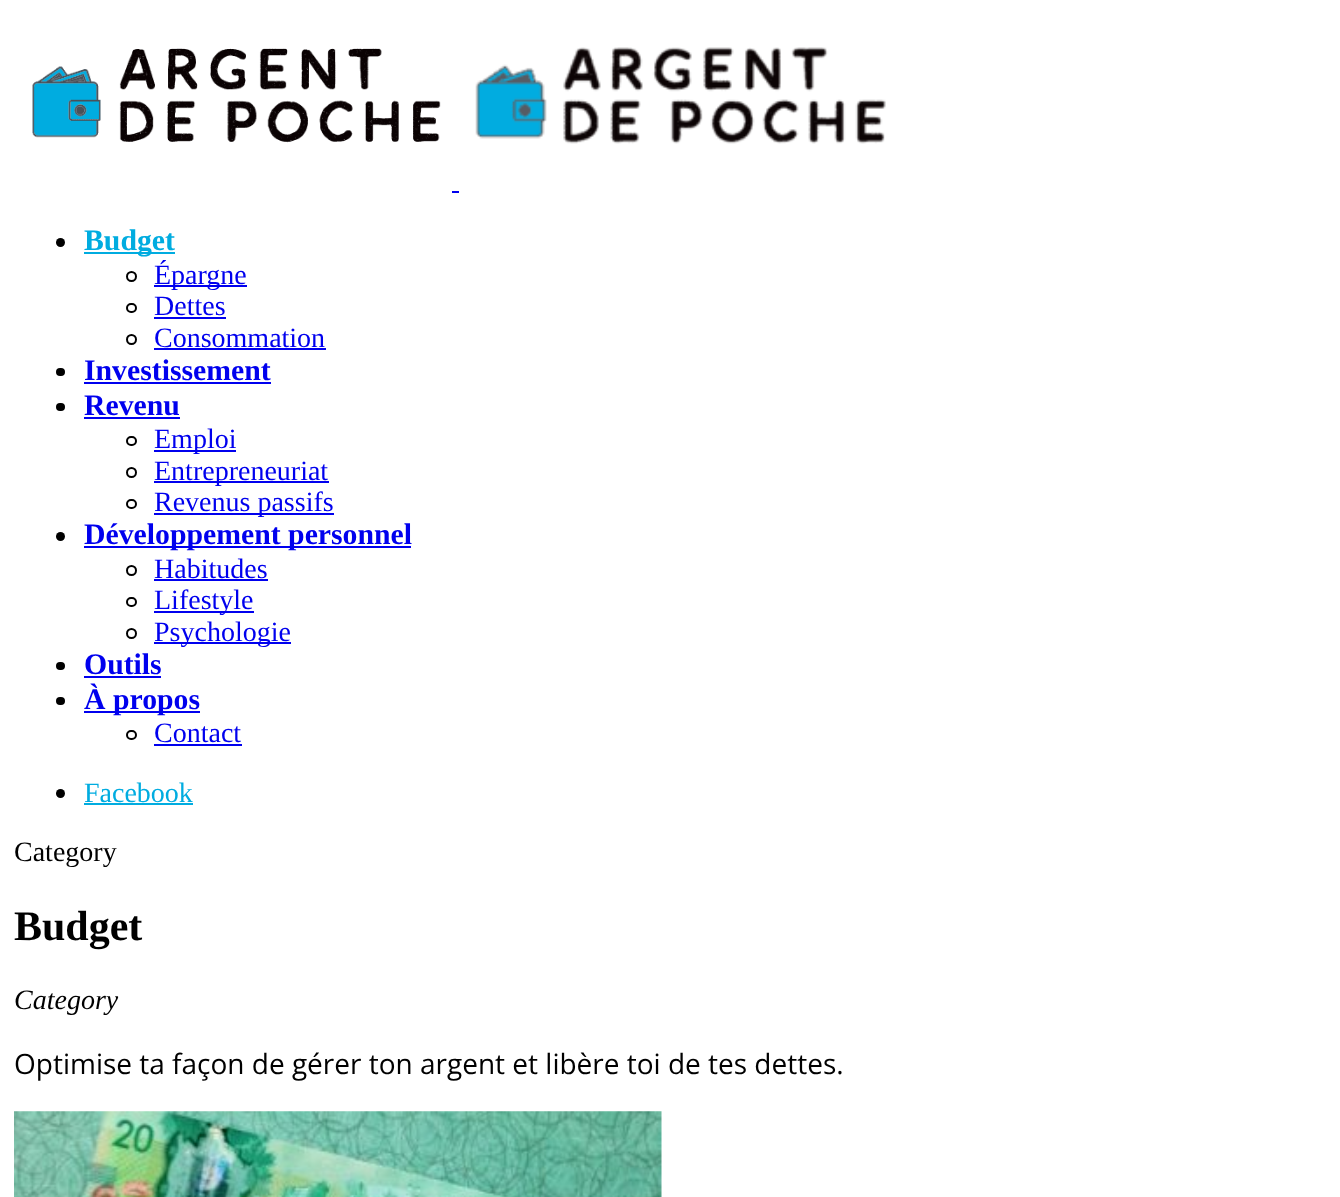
async function draw(canvas) {
  canvas.width = 1340
  canvas.height = 1197
  const ctx = canvas.getContext('2d')
  ctx.miterLimit = 4
  ctx.fontKerning = 'normal'
  async function loadImage(src) {
    const img = new Image()
    img.src = src
    await img.decode()
    return img
  }

  ctx.fillStyle = '#fff'
  ctx.fillRect(0, 0, 1340, 1197)
  ctx.drawImage(await loadImage('image0.png'), 32, 48, 409, 95)
  ctx.drawImage(await loadImage('image1.png'), 475, 47, 411, 97)
  ctx.fillStyle = '#00e'
  ctx.fillRect(452, 191, 7, 2)
  ctx.fillStyle = '#000'
  ctx.beginPath()
  ctx.arc(60.5, 242.5, 4.5, 0, 2 * Math.PI)
  ctx.fill()
  ctx.fillStyle = '#00ace0'
  ctx.fillRect(84, 252, 91, 2)
  ctx.font = 'bold 29.75px Liberation Serif'
  ctx.fillText('Budget', 84, 250)
  ctx.beginPath()
  ctx.arc(131.5, 276.5, 4.5, 0, 2 * Math.PI)
  ctx.strokeStyle = '#000'
  ctx.lineWidth = 2
  ctx.stroke()
  ctx.fillStyle = '#00e'
  ctx.fillRect(154, 285, 93, 2)
  ctx.font = '28px Liberation Serif'
  ctx.fillText('Épargne', 154, 284)
  ctx.beginPath()
  ctx.roundRect(127, 304, 9, 8, 4)
  ctx.stroke()
  ctx.fillText('Dettes', 154, 315)
  ctx.fillRect(154, 317, 72, 2)
  ctx.beginPath()
  ctx.arc(131.5, 339.5, 4.5, 0, 2 * Math.PI)
  ctx.stroke()
  ctx.fillText('Consommation', 154, 347)
  ctx.fillRect(154, 348, 172, 2)
  ctx.fillStyle = '#000'
  ctx.beginPath()
  ctx.roundRect(56, 368, 9, 8, 4)
  ctx.fill()
  ctx.font = 'bold 29.75px Liberation Serif'
  ctx.fillStyle = '#00e'
  ctx.fillText('Investissement', 84, 380)
  ctx.fillRect(84, 382, 187, 2)
  ctx.fillStyle = '#000'
  ctx.beginPath()
  ctx.roundRect(56, 403, 9, 8, 4)
  ctx.fill()
  ctx.fillStyle = '#00e'
  ctx.fillText('Revenu', 84, 415)
  ctx.fillRect(84, 417, 96, 2)
  ctx.beginPath()
  ctx.roundRect(127, 437, 9, 8, 4)
  ctx.stroke()
  ctx.fillRect(154, 450, 82, 2)
  ctx.font = '28px Liberation Serif'
  ctx.fillText('Emploi', 154, 448)
  ctx.beginPath()
  ctx.arc(131.5, 472.5, 4.5, 0, 2 * Math.PI)
  ctx.stroke()
  ctx.fillRect(154, 481, 175, 2)
  ctx.fillText('Entrepreneuriat', 154, 480)
  ctx.beginPath()
  ctx.roundRect(127, 500, 9, 8, 4)
  ctx.stroke()
  ctx.fillRect(154, 513, 180, 2)
  ctx.fillText('Revenus passifs', 154, 511)
  ctx.fillStyle = '#000'
  ctx.beginPath()
  ctx.arc(60.5, 536.5, 4.5, 0, 2 * Math.PI)
  ctx.fill()
  ctx.fillStyle = '#00e'
  ctx.fillRect(84, 546, 327, 2)
  ctx.font = 'bold 29.75px Liberation Serif'
  ctx.fillText('Développement personnel', 84, 544)
  ctx.beginPath()
  ctx.arc(131.5, 570.5, 4.5, 0, 2 * Math.PI)
  ctx.stroke()
  ctx.font = '28px Liberation Serif'
  ctx.fillText('Habitudes', 154, 578)
  ctx.fillRect(154, 579, 114, 2)
  ctx.beginPath()
  ctx.roundRect(127, 598, 9, 8, 4)
  ctx.stroke()
  ctx.fillRect(154, 611, 100, 2)
  ctx.fillText('Lifestyle', 154, 609)
  ctx.beginPath()
  ctx.arc(131.5, 633.5, 4.5, 0, 2 * Math.PI)
  ctx.stroke()
  ctx.fillRect(154, 642, 137, 2)
  ctx.fillText('Psychologie', 154, 641)
  ctx.fillStyle = '#000'
  ctx.beginPath()
  ctx.roundRect(56, 662, 9, 8, 4)
  ctx.fill()
  ctx.font = 'bold 29.75px Liberation Serif'
  ctx.fillStyle = '#00e'
  ctx.fillText('Outils', 84, 674)
  ctx.fillRect(84, 676, 77, 2)
  ctx.fillStyle = '#000'
  ctx.beginPath()
  ctx.roundRect(56, 697, 9, 8, 4)
  ctx.fill()
  ctx.fillStyle = '#00e'
  ctx.fillRect(84, 711, 116, 2)
  ctx.fillText('À propos', 84, 709)
  ctx.beginPath()
  ctx.roundRect(127, 731, 9, 8, 4)
  ctx.stroke()
  ctx.font = '28px Liberation Serif'
  ctx.fillText('Contact', 154, 742)
  ctx.fillRect(154, 744, 88, 2)
  ctx.fillStyle = '#000'
  ctx.beginPath()
  ctx.arc(60.5, 793.5, 4.5, 0, 2 * Math.PI)
  ctx.fill()
  ctx.fillStyle = '#00ace0'
  ctx.fillText('Facebook', 84, 802)
  ctx.fillRect(84, 803, 109, 2)
  ctx.fillStyle = '#000'
  ctx.fillText('Category', 14, 861)
  ctx.font = 'bold 42px Liberation Serif'
  ctx.fillText('Budget', 14, 940)
  ctx.font = 'italic 28px Liberation Serif'
  ctx.fillText('Category', 14, 1009)
  ctx.font = '28px Open Sans'
  ctx.fillText('Optimise ta façon de gérer ton argent et libère toi de tes dettes.', 14, 1074)
  ctx.drawImage(await loadImage('image2.png'), 14, 1111, 648, 86)
}

draw(document.querySelector('canvas'))
